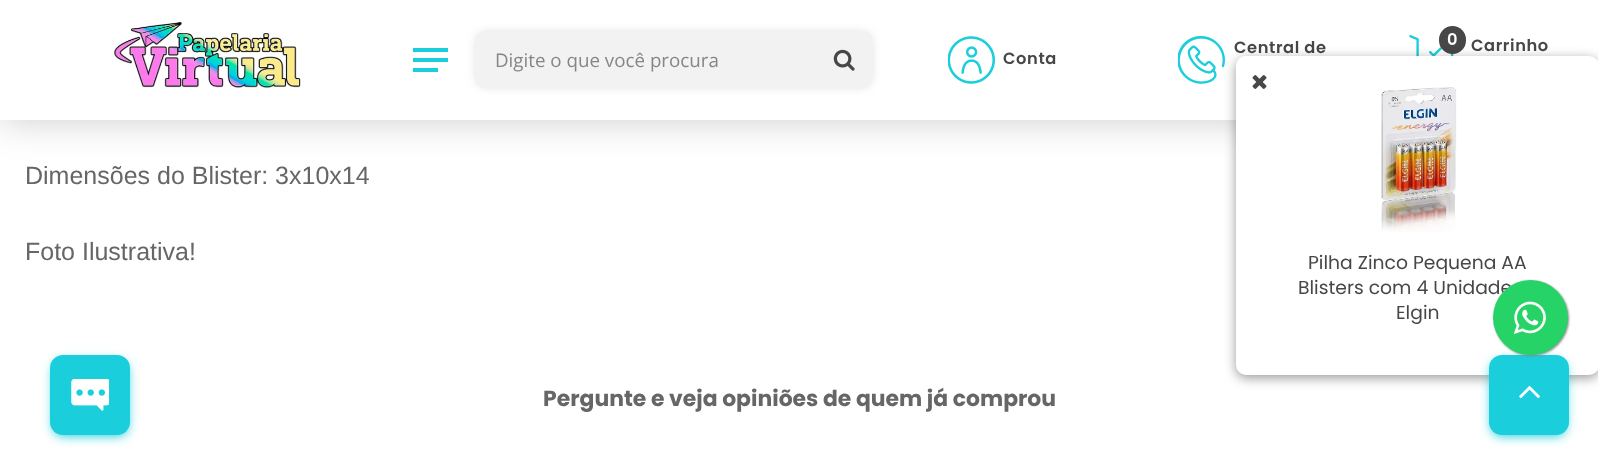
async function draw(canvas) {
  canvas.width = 1598
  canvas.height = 455
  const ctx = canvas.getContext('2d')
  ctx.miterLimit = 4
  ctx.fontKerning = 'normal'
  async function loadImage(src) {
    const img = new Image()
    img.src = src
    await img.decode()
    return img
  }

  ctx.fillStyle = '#fff'
  ctx.fillRect(0, 0, 1598, 455)
  ctx.fillStyle = '#00000033'
  ctx.filter = 'blur(19px)'
  ctx.beginPath()
  ctx.rect(0, 0, 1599, 120)
  ctx.fill()
  ctx.filter = 'none'
  ctx.fillStyle = '#fff'
  ctx.fillRect(0, 0, 1598, 120)
  ctx.drawImage(await loadImage('image0.png'), 114, 22, 187, 66)
  ctx.fillStyle = '#1bcedb'
  ctx.fillRect(413, 48, 35, 4)
  ctx.fillRect(413, 58, 35, 4)
  ctx.fillRect(413, 68, 25, 4)
  ctx.fillStyle = '#ccc'
  ctx.filter = 'blur(5.5px)'
  ctx.beginPath()
  ctx.roundRect(478, 34, 392, 51, 8)
  ctx.fill()
  ctx.filter = 'none'
  ctx.fillStyle = '#f2f2f2'
  ctx.beginPath()
  ctx.roundRect(475, 31, 398, 57, 10)
  ctx.fill()
  ctx.font = '18.75px Open Sans'
  ctx.fillStyle = '#868686'
  ctx.fillText('Digite o que você procura', 495, 67)
  ctx.drawImage(await loadImage('image1.png'), 833, 49, 22, 22)
  ctx.drawImage(await loadImage('image2.png'), 1178, 36, 47, 48)
  ctx.letterSpacing = '0.6px'
  ctx.font = '600 16.25px Poppins'
  ctx.fillStyle = '#474747'
  ctx.fillText('Central de', 1234, 53)
  ctx.drawImage(await loadImage('image3.png'), 1409, 35, 45, 21)
  ctx.beginPath()
  ctx.roundRect(1439, 26, 27, 28, 13.5)
  ctx.fill()
  ctx.fillStyle = '#fff'
  ctx.fillText('0', 1447, 45)
  ctx.fillStyle = '#474747'
  ctx.fillText('Carrinho', 1471, 51)
  ctx.drawImage(await loadImage('image4.png'), 948, 36, 47, 48)
  ctx.fillText('Conta', 1003, 64)
  ctx.letterSpacing = '0px'
  ctx.font = '25px Liberation Sans'
  ctx.fillStyle = '#666'
  ctx.fillText('Dimensões do Blister: 3x10x14', 25, 184)
  ctx.fillText('Foto Ilustrativa!', 25, 260)
  ctx.fillStyle = '#00000066'
  ctx.filter = 'blur(6px)'
  ctx.beginPath()
  ctx.roundRect(1236, 59, 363, 319, 10)
  ctx.fill()
  ctx.filter = 'none'
  ctx.fillStyle = '#fff'
  ctx.beginPath()
  ctx.roundRect(1236, 56, 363, 319, 10)
  ctx.fill()
  ctx.beginPath()
  ctx.roundRect(1236, 56, 47, 50, [10, 0, 6, 0])
  ctx.fill()
  ctx.drawImage(await loadImage('image5.png'), 1252, 75, 15, 14)
  ctx.drawImage(await loadImage('image6.png'), 1381, 87, 76, 145)
  ctx.font = '18.75px Poppins'
  ctx.fillStyle = '#474747'
  ctx.fillText('Pilha Zinco Pequena AA', 1308, 269)
  ctx.fillText('Blisters com 4 Unidade', 1298, 294)
  ctx.fillText('Elgin', 1396, 319)
  ctx.font = 'bold 21.9px Poppins'
  ctx.fillStyle = '#666'
  ctx.fillText('Pergunte e veja opiniões de quem já comprou', 543, 406)
  ctx.fillStyle = '#1bcedb'
  ctx.filter = 'blur(5.5px)'
  ctx.beginPath()
  ctx.roundRect(1491, 361, 75, 75, 10)
  ctx.fill()
  ctx.filter = 'none'
  ctx.beginPath()
  ctx.roundRect(1489, 355, 80, 80, 13)
  ctx.fill()
  ctx.fillStyle = '#888'
  ctx.filter = 'blur(1px)'
  ctx.beginPath()
  ctx.roundRect(1494, 281, 75, 75, 37.5)
  ctx.fill()
  ctx.filter = 'none'
  ctx.fillStyle = '#25d366'
  ctx.beginPath()
  ctx.arc(1530.5, 317.5, 37.5, 0, 2 * Math.PI)
  ctx.fill()
  ctx.drawImage(await loadImage('image7.png'), 1513, 301, 33, 33)
  ctx.fillStyle = '#1bcedb'
  ctx.filter = 'blur(5.5px)'
  ctx.beginPath()
  ctx.roundRect(53, 361, 75, 75, 10)
  ctx.fill()
  ctx.filter = 'none'
  ctx.beginPath()
  ctx.roundRect(50, 355, 80, 80, 13)
  ctx.fill()
  ctx.drawImage(await loadImage('image8.png'), 71, 379, 38, 32)
  ctx.drawImage(await loadImage('image9.png'), 1519, 386, 21, 13)
}

draw(document.querySelector('canvas'))
